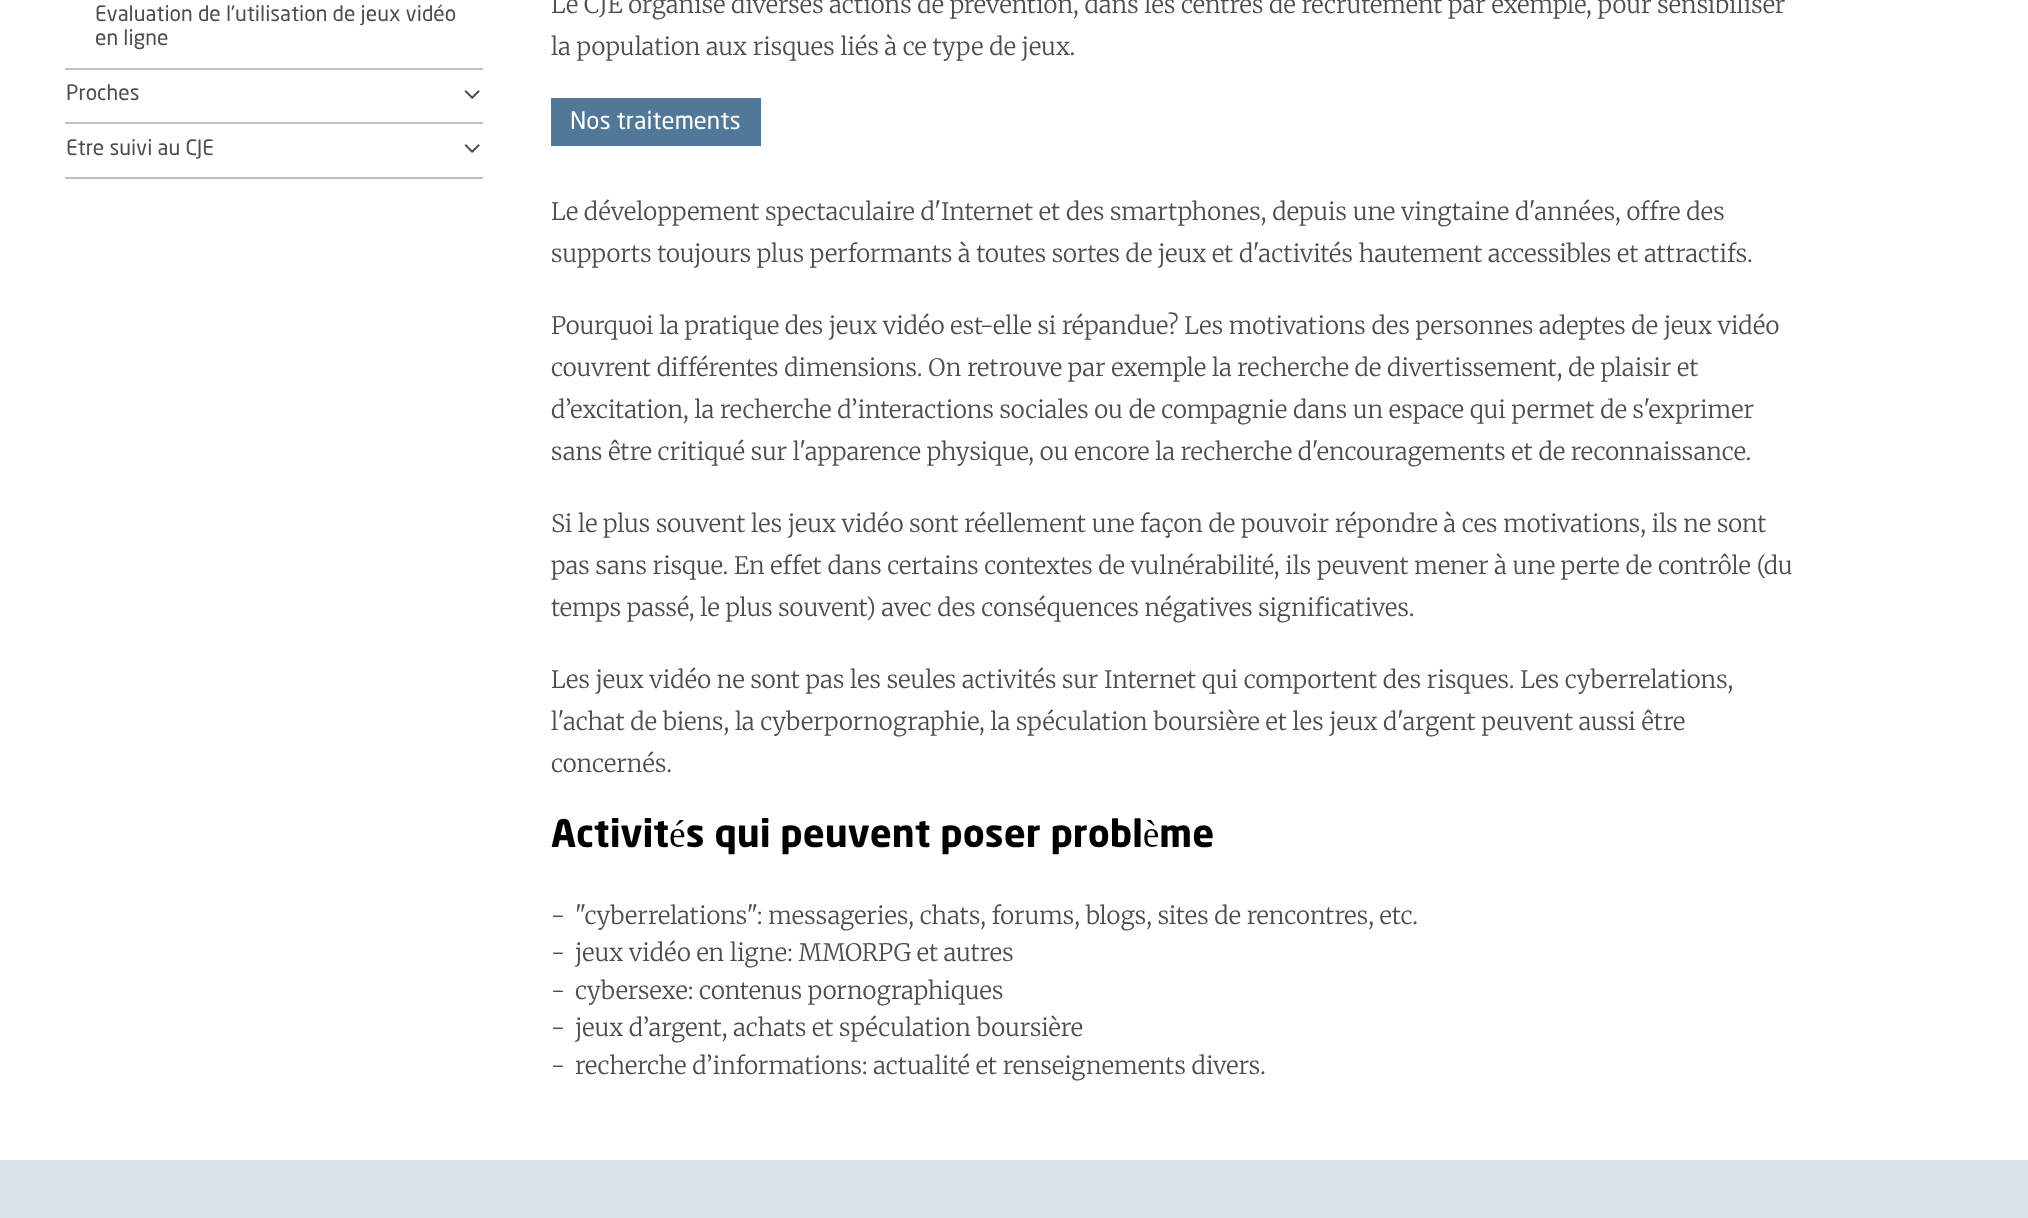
async function draw(canvas) {
  canvas.width = 2028
  canvas.height = 1218
  const ctx = canvas.getContext('2d')
  ctx.miterLimit = 4
  ctx.fontKerning = 'normal'
  async function loadImage(src) {
    const img = new Image()
    img.src = src
    await img.decode()
    return img
  }

  ctx.fillStyle = '#fff'
  ctx.fillRect(0, 0, 2028, 1218)
  ctx.font = '21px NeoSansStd'
  ctx.fillStyle = '#4d4d4d'
  ctx.fillText('Evaluation de l\'utilisation de jeux vidéo', 95, 21)
  ctx.fillText('en ligne', 95, 45)
  ctx.fillStyle = '#bfbfbf'
  ctx.fillRect(65, 68, 418, 2)
  ctx.fillStyle = '#4d4d4d'
  ctx.fillText('Proches', 66, 100)
  ctx.drawImage(await loadImage('image0.png'), 464, 90, 16, 9)
  ctx.fillStyle = '#bfbfbf'
  ctx.fillRect(65, 122, 418, 2)
  ctx.fillRect(65, 177, 418, 2)
  ctx.fillStyle = '#4d4d4d'
  ctx.fillText('Etre suivi au CJE', 66, 155)
  ctx.drawImage(await loadImage('image0.png'), 464, 144, 16, 9)
  ctx.font = '300 24px Merriweather'
  ctx.fillText('Le CJE organise diverses actions de prévention, dans les centres de recrutement par exemple, pour sensibiliser', 551, 13)
  ctx.fillText('la population aux risques liés à ce type de jeux.', 551, 55)
  ctx.fillStyle = '#517898'
  ctx.fillRect(551, 98, 210, 48)
  ctx.font = '24px NeoSansStd'
  ctx.fillStyle = '#fff'
  ctx.fillText('Nos traitements', 570, 129)
  ctx.font = '300 24px Merriweather'
  ctx.fillStyle = '#4d4d4d'
  ctx.fillText('Le développement spectaculaire d\'Internet et des smartphones, depuis une vingtaine d\'années, offre des', 551, 220)
  ctx.fillText('supports toujours plus performants à toutes sortes de jeux et d\'activités hautement accessibles et attractifs.', 551, 262)
  ctx.fillText('Pourquoi la pratique des jeux vidéo est-elle si répandue? Les motivations des personnes adeptes de jeux vidéo', 551, 334)
  ctx.fillText('couvrent différentes dimensions. On retrouve par exemple la recherche de divertissement, de plaisir et', 551, 376)
  ctx.fillText('d’excitation, la recherche d’interactions sociales ou de compagnie dans un espace qui permet de s\'exprimer', 551, 418)
  ctx.fillText('sans être critiqué sur l\'apparence physique, ou encore la recherche d\'encouragements et de reconnaissance.', 551, 460)
  ctx.fillText('Si le plus souvent les jeux vidéo sont réellement une façon de pouvoir répondre à ces motivations, ils ne sont', 551, 532)
  ctx.fillText('pas sans risque. En effet dans certains contextes de vulnérabilité, ils peuvent mener à une perte de contrôle (du', 551, 574)
  ctx.fillText('temps passé, le plus souvent) avec des conséquences négatives significatives.', 551, 616)
  ctx.fillText('Les jeux vidéo ne sont pas les seules activités sur Internet qui comportent des risques. Les cyberrelations,', 551, 688)
  ctx.fillText('l\'achat de biens, la cyberpornographie, la spéculation boursière et les jeux d\'argent peuvent aussi être', 551, 730)
  ctx.fillText('concernés.', 551, 772)
  ctx.font = '37.5px "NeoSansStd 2"'
  ctx.fillStyle = '#000'
  ctx.fillText('Activités qui peuvent poser problème', 551, 847)
  ctx.font = '300 24px Merriweather'
  ctx.fillStyle = '#4d4d4d'
  ctx.fillText('-', 551, 924)
  ctx.fillText('"cyberrelations": messageries, chats, forums, blogs, sites de rencontres, etc.', 575, 924)
  ctx.fillText('-', 551, 961)
  ctx.fillText('jeux vidéo en ligne: MMORPG et autres', 575, 961)
  ctx.fillText('-', 551, 999)
  ctx.fillText('cybersexe: contenus pornographiques', 575, 999)
  ctx.fillText('-', 551, 1036)
  ctx.fillText('jeux d’argent, achats et spéculation boursière', 575, 1036)
  ctx.fillText('-', 551, 1074)
  ctx.fillText('recherche d’informations: actualité et renseignements divers.', 575, 1074)
  ctx.fillStyle = '#dbe3ea'
  ctx.fillRect(0, 1160, 2028, 58)
}

draw(document.querySelector('canvas'))
